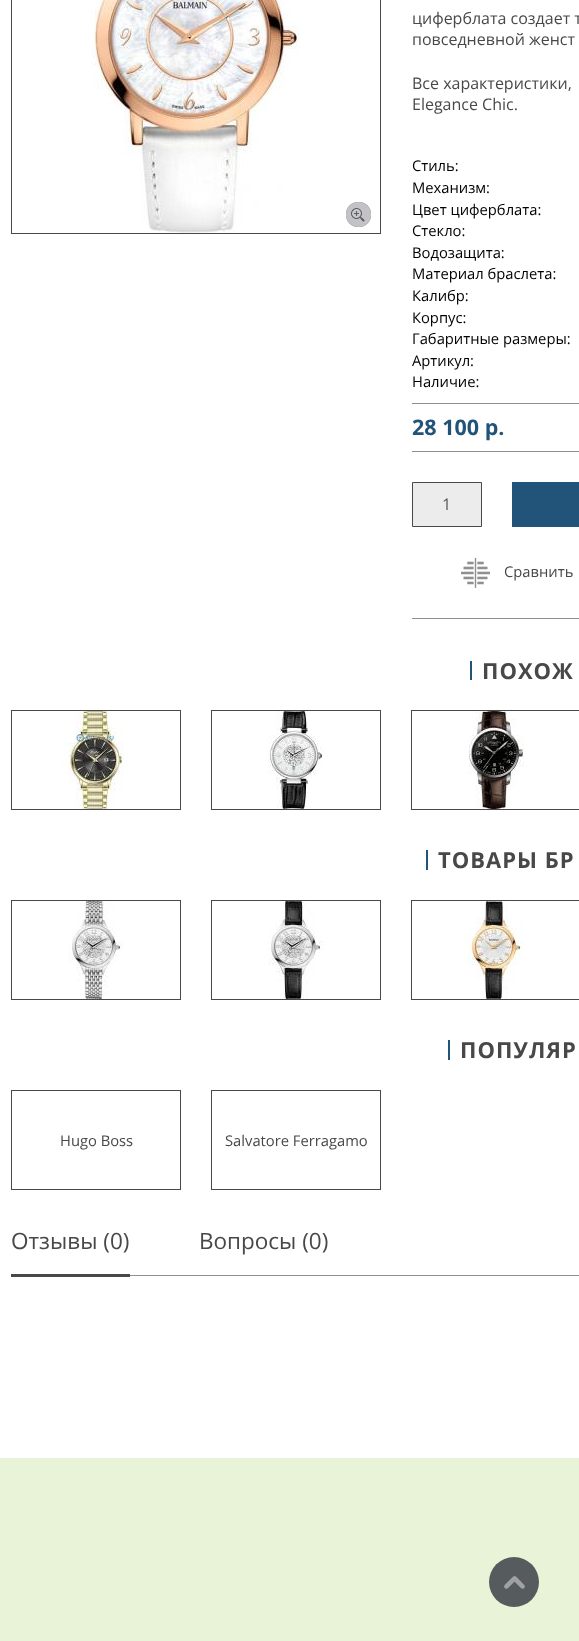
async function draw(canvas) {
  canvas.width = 579
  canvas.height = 1641
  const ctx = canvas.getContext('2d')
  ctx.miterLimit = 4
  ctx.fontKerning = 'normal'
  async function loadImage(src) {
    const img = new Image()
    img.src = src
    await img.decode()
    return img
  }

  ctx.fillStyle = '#e8f3d8'
  ctx.fillRect(0, 0, 579, 1641)
  ctx.fillStyle = '#fff'
  ctx.fillRect(0, 0, 579, 1458)
  ctx.strokeStyle = '#484848'
  ctx.strokeRect(11.5, -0.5, 369, 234)
  ctx.drawImage(await loadImage('image0.png'), 92, 0, 208, 233)
  ctx.drawImage(await loadImage('image1.png'), 346, 202, 25, 25)
  ctx.font = '16px Open Sans'
  ctx.fillStyle = '#484848'
  ctx.fillText('циферблата создает т', 412, 24)
  ctx.fillText('повседневной женст', 412, 45)
  ctx.fillText('Все характеристики,', 412, 89)
  ctx.fillText('Elegance Chic.', 412, 110)
  ctx.font = '14.75px Open Sans'
  ctx.fillStyle = '#000'
  ctx.fillText('Стиль:', 412, 171)
  ctx.fillText('Механизм:', 412, 193)
  ctx.fillText('Цвет циферблата:', 412, 215)
  ctx.fillText('Стекло:', 412, 236)
  ctx.fillText('Водозащита:', 412, 258)
  ctx.fillText('Материал браслета:', 412, 279)
  ctx.fillText('Калибр:', 412, 301)
  ctx.fillText('Корпус:', 412, 323)
  ctx.fillText('Габаритные размеры:', 412, 344)
  ctx.fillText('Артикул:', 412, 366)
  ctx.fillText('Наличие:', 412, 387)
  ctx.fillStyle = '#909090'
  ctx.fillRect(412, 403, 167, 1)
  ctx.fillRect(412, 451, 167, 1)
  ctx.font = 'bold 21.5px Open Sans'
  ctx.fillStyle = '#225378'
  ctx.fillText('28 100 р.', 412, 435)
  ctx.fillStyle = '#ececec'
  ctx.beginPath()
  ctx.rect(412.5, 482.5, 69, 44)
  ctx.fill()
  ctx.stroke()
  ctx.font = '16px Open Sans'
  ctx.fillStyle = '#575757'
  ctx.fillText('1', 442, 510)
  ctx.fillStyle = '#225378'
  ctx.fillRect(512, 482, 67, 45)
  ctx.fillStyle = '#909090'
  ctx.fillRect(412, 618, 167, 1)
  ctx.drawImage(await loadImage('image2.png'), 461, 558, 29, 30)
  ctx.font = '14.75px Open Sans'
  ctx.fillStyle = '#484848'
  ctx.fillText('Сравнить', 504, 577)
  ctx.fillStyle = '#225378'
  ctx.fillRect(470, 661, 2, 19)
  ctx.letterSpacing = '1px'
  ctx.font = 'bold 22px Open Sans'
  ctx.fillStyle = '#484848'
  ctx.fillText('ПОХОЖ', 482, 679)
  ctx.strokeRect(11.5, 710.5, 169, 99)
  ctx.drawImage(await loadImage('image3.png'), 60, 711, 64, 98)
  ctx.strokeRect(211.5, 710.5, 169, 99)
  ctx.drawImage(await loadImage('image4.png'), 268, 711, 56, 98)
  ctx.strokeRect(411.5, 710.5, 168, 99)
  ctx.drawImage(await loadImage('image5.png'), 468, 711, 56, 98)
  ctx.fillStyle = '#225378'
  ctx.fillRect(426, 850, 2, 20)
  ctx.fillStyle = '#484848'
  ctx.fillText('ТОВАРЫ БР', 438, 868)
  ctx.strokeRect(11.5, 900.5, 169, 99)
  ctx.drawImage(await loadImage('image6.png'), 68, 901, 56, 98)
  ctx.strokeRect(211.5, 900.5, 169, 99)
  ctx.drawImage(await loadImage('image7.png'), 268, 901, 56, 98)
  ctx.strokeRect(411.5, 900.5, 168, 99)
  ctx.drawImage(await loadImage('image8.png'), 464, 901, 60, 98)
  ctx.fillStyle = '#225378'
  ctx.fillRect(448, 1040, 2, 20)
  ctx.fillStyle = '#484848'
  ctx.fillText('ПОПУЛЯР', 460, 1058)
  ctx.strokeRect(11.5, 1090.5, 169, 99)
  ctx.letterSpacing = '0px'
  ctx.font = '14.75px Open Sans'
  ctx.fillText('Hugo Boss', 60, 1146)
  ctx.strokeRect(211.5, 1090.5, 169, 99)
  ctx.fillText('Salvatore Ferragamo', 225, 1146)
  ctx.fillStyle = '#909090'
  ctx.fillRect(130, 1275, 449, 1)
  ctx.fillStyle = '#484848'
  ctx.fillRect(11, 1274, 119, 3)
  ctx.font = '22.5px Open Sans'
  ctx.fillText('Отзывы (0)', 11, 1249)
  ctx.fillText('Вопросы (0)', 199, 1249)
  ctx.fillStyle = '#565b5d'
  ctx.beginPath()
  ctx.arc(514, 1582, 25, 0, 2 * Math.PI)
  ctx.fill()
  ctx.drawImage(await loadImage('image9.png'), 504, 1576, 21, 13)
}

draw(document.querySelector('canvas'))
